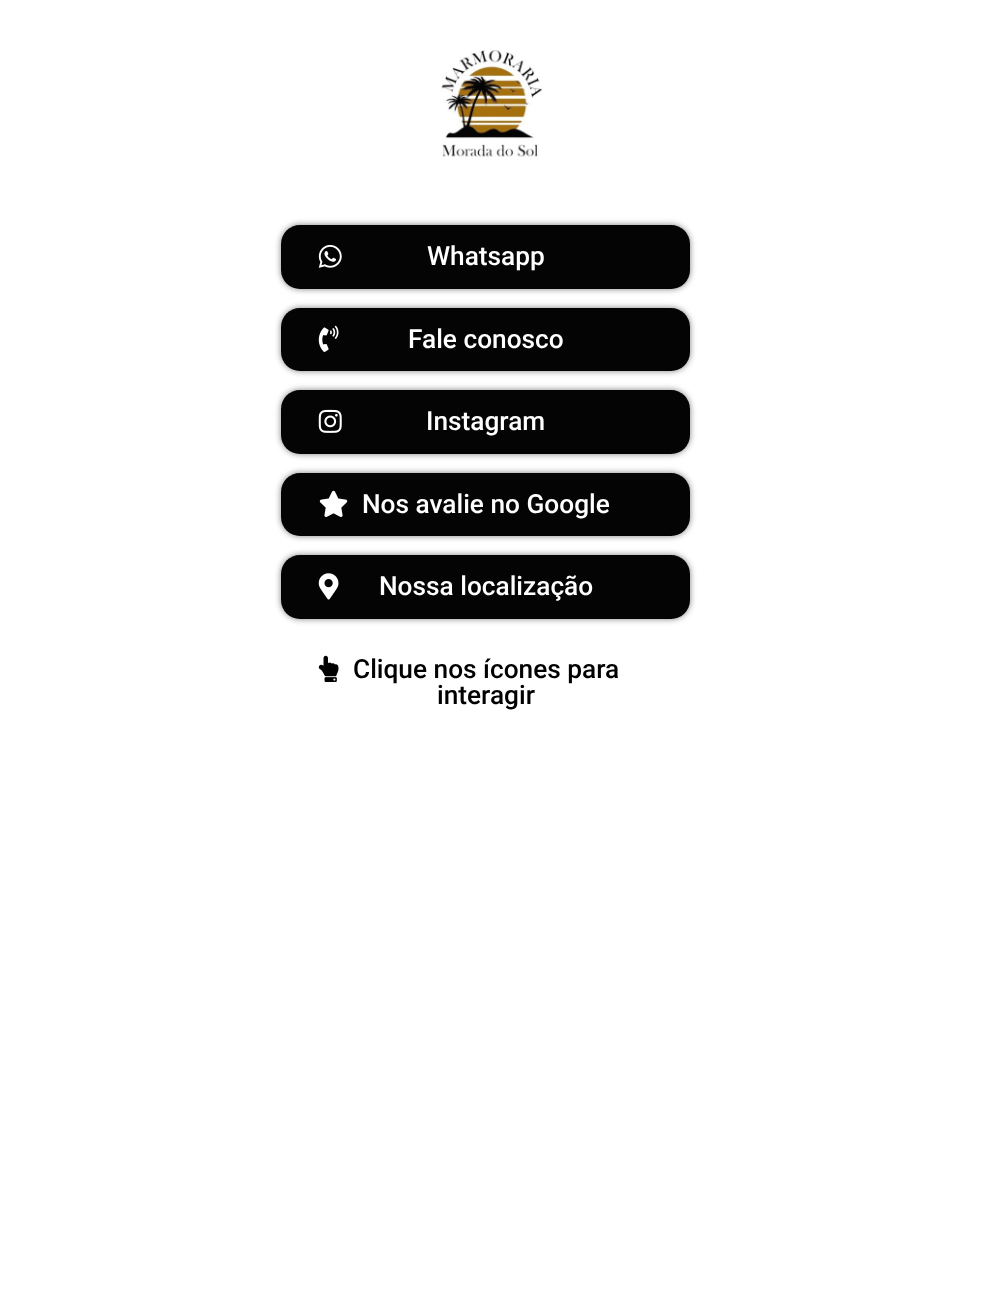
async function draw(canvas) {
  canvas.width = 984
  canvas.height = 1309
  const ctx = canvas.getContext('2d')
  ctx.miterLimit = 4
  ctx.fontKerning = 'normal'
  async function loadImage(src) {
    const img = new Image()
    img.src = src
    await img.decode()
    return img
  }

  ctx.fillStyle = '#fff'
  ctx.fillRect(0, 0, 984, 1309)
  ctx.drawImage(await loadImage('image0.png'), 441, 50, 102, 107)
  ctx.fillStyle = '#00000080'
  ctx.filter = 'blur(3px)'
  ctx.beginPath()
  ctx.roundRect(281, 225, 409, 64, 19)
  ctx.fill()
  ctx.filter = 'none'
  ctx.fillStyle = '#040404'
  ctx.beginPath()
  ctx.roundRect(281, 225, 409, 64, 19)
  ctx.fill()
  ctx.drawImage(await loadImage('image1.png'), 318, 244, 24, 24)
  ctx.font = '500 26.25px Roboto'
  ctx.fillStyle = '#fff'
  ctx.fillText('Whatsapp', 427, 265)
  ctx.fillStyle = '#00000080'
  ctx.filter = 'blur(3px)'
  ctx.beginPath()
  ctx.roundRect(281, 308, 409, 63, 19)
  ctx.fill()
  ctx.filter = 'none'
  ctx.fillStyle = '#040404'
  ctx.beginPath()
  ctx.roundRect(281, 308, 409, 63, 19)
  ctx.fill()
  ctx.drawImage(await loadImage('image2.png'), 318, 325, 21, 27)
  ctx.fillStyle = '#fff'
  ctx.fillText('Fale conosco', 408, 348)
  ctx.fillStyle = '#00000080'
  ctx.filter = 'blur(3px)'
  ctx.beginPath()
  ctx.roundRect(281, 390, 409, 64, 19)
  ctx.fill()
  ctx.filter = 'none'
  ctx.fillStyle = '#040404'
  ctx.beginPath()
  ctx.roundRect(281, 390, 409, 64, 19)
  ctx.fill()
  ctx.drawImage(await loadImage('image3.png'), 318, 409, 24, 24)
  ctx.fillStyle = '#fff'
  ctx.fillText('Instagram', 426, 430)
  ctx.fillStyle = '#00000080'
  ctx.filter = 'blur(3px)'
  ctx.beginPath()
  ctx.roundRect(281, 473, 409, 63, 19)
  ctx.fill()
  ctx.filter = 'none'
  ctx.fillStyle = '#040404'
  ctx.beginPath()
  ctx.roundRect(281, 473, 409, 63, 19)
  ctx.fill()
  ctx.drawImage(await loadImage('image4.png'), 319, 490, 29, 27)
  ctx.fillStyle = '#fff'
  ctx.fillText('Nos avalie no Google', 362, 513)
  ctx.fillStyle = '#00000080'
  ctx.filter = 'blur(3px)'
  ctx.beginPath()
  ctx.roundRect(281, 555, 409, 64, 19)
  ctx.fill()
  ctx.filter = 'none'
  ctx.fillStyle = '#040404'
  ctx.beginPath()
  ctx.roundRect(281, 555, 409, 64, 19)
  ctx.fill()
  ctx.drawImage(await loadImage('image5.png'), 318, 573, 21, 27)
  ctx.fillStyle = '#fff'
  ctx.fillText('Nossa localização', 379, 595)
  ctx.drawImage(await loadImage('image6.png'), 318, 655, 21, 27)
  ctx.fillStyle = '#000'
  ctx.fillText('Clique nos ícones para', 353, 678)
  ctx.fillText('interagir', 437, 704)
}

draw(document.querySelector('canvas'))
